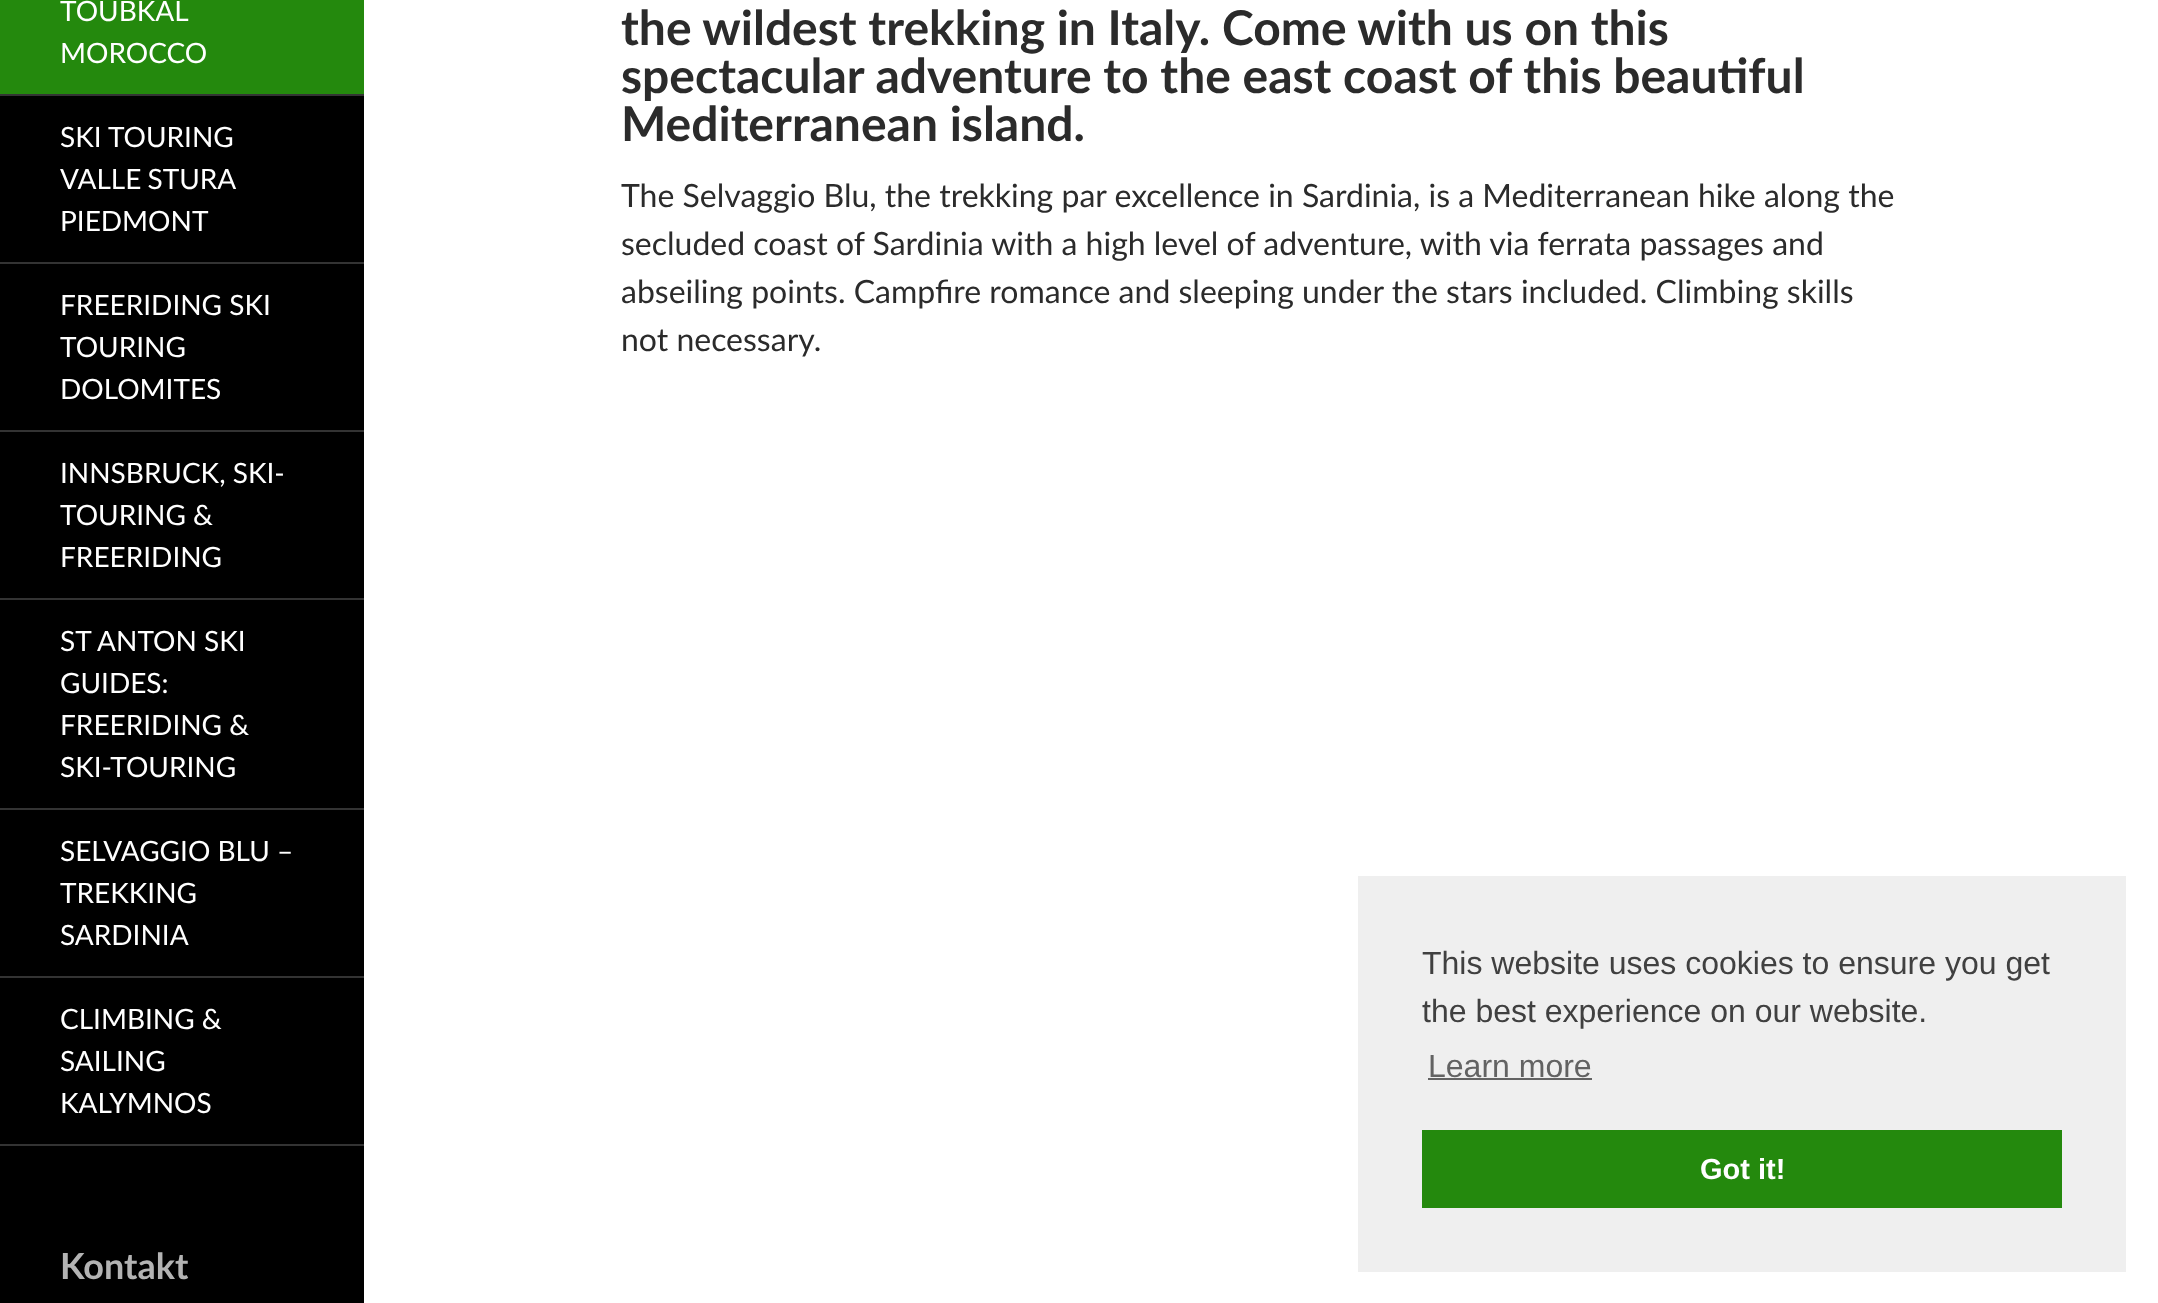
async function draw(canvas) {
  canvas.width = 2158
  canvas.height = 1303
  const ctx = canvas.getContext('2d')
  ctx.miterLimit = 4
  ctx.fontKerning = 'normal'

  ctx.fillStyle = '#fff'
  ctx.fillRect(0, 0, 2158, 1303)
  ctx.fillStyle = '#000'
  ctx.fillRect(0, 96, 364, 1207)
  ctx.fillStyle = '#333'
  ctx.fillRect(0, 1144, 364, 2)
  ctx.fillStyle = '#24890d'
  ctx.fillRect(0, 0, 364, 94)
  ctx.font = '28px Lato'
  ctx.fillStyle = '#fff'
  ctx.fillText('TOUBKAL', 60, 21)
  ctx.fillText('MOROCCO', 60, 63)
  ctx.fillStyle = '#333'
  ctx.fillRect(0, 94, 364, 2)
  ctx.fillStyle = '#fff'
  ctx.fillText('SKI TOURING', 60, 147)
  ctx.wordSpacing = '-1px'
  ctx.fillText('VALLE STURA', 60, 189)
  ctx.wordSpacing = '0px'
  ctx.fillText('PIEDMONT', 60, 231)
  ctx.fillStyle = '#333'
  ctx.fillRect(0, 262, 364, 2)
  ctx.fillStyle = '#fff'
  ctx.fillText('FREERIDING SKI', 60, 315)
  ctx.fillText('TOURING', 60, 357)
  ctx.fillText('DOLOMITES', 60, 399)
  ctx.fillStyle = '#333'
  ctx.fillRect(0, 430, 364, 2)
  ctx.fillStyle = '#fff'
  ctx.fillText('INNSBRUCK, SKI-', 60, 483)
  ctx.fillText('TOURING &', 60, 525)
  ctx.fillText('FREERIDING', 60, 567)
  ctx.fillStyle = '#333'
  ctx.fillRect(0, 598, 364, 2)
  ctx.fillStyle = '#fff'
  ctx.fillText('ST ANTON SKI', 60, 651)
  ctx.fillText('GUIDES:', 60, 693)
  ctx.fillText('FREERIDING &', 60, 735)
  ctx.fillText('SKI-TOURING', 60, 777)
  ctx.fillStyle = '#333'
  ctx.fillRect(0, 808, 364, 2)
  ctx.fillStyle = '#fff'
  ctx.fillText('SELVAGGIO BLU –', 60, 861)
  ctx.fillText('TREKKING', 60, 903)
  ctx.fillText('SARDINIA', 60, 945)
  ctx.fillStyle = '#333'
  ctx.fillRect(0, 976, 364, 2)
  ctx.fillStyle = '#fff'
  ctx.fillText('CLIMBING &', 60, 1029)
  ctx.fillText('SAILING', 60, 1071)
  ctx.fillText('KALYMNOS', 60, 1113)
  ctx.font = 'bold 36px Lato'
  ctx.fillStyle = '#b3b3b3'
  ctx.fillText('Kontakt', 60, 1279)
  ctx.font = 'bold 48px Lato'
  ctx.fillStyle = '#2b2b2b'
  ctx.fillText('the wildest trekking in Italy. Come with us on this', 621, 45)
  ctx.fillText('spectacular adventure to the east coast of this beautiful', 621, 93)
  ctx.fillText('Mediterranean island.', 621, 141)
  ctx.font = '32px Lato'
  ctx.fillText('The Selvaggio Blu, the trekking par excellence in Sardinia, is a Mediterranean hike along the', 621, 207)
  ctx.fillText('secluded coast of Sardinia with a high level of adventure, with via ferrata passages and', 621, 255)
  ctx.fillText('abseiling points. Campfire romance and sleeping under the stars included. Climbing skills', 621, 303)
  ctx.fillText('not necessary.', 621, 351)
  ctx.fillStyle = '#efefef'
  ctx.fillRect(1358, 876, 768, 396)
  ctx.font = '32px Liberation Sans'
  ctx.fillStyle = '#404040'
  ctx.fillText('This website uses cookies to ensure you get', 1422, 974)
  ctx.fillText('the best experience on our website.', 1422, 1022)
  ctx.fillStyle = '#636363'
  ctx.fillText('Learn more', 1428, 1077)
  ctx.fillRect(1428, 1078, 164, 2)
  ctx.fillStyle = '#24890d'
  ctx.fillRect(1422, 1130, 640, 78)
  ctx.font = 'bold 29px Liberation Sans'
  ctx.fillStyle = '#fff'
  ctx.fillText('Got it!', 1700, 1179)
}

draw(document.querySelector('canvas'))
